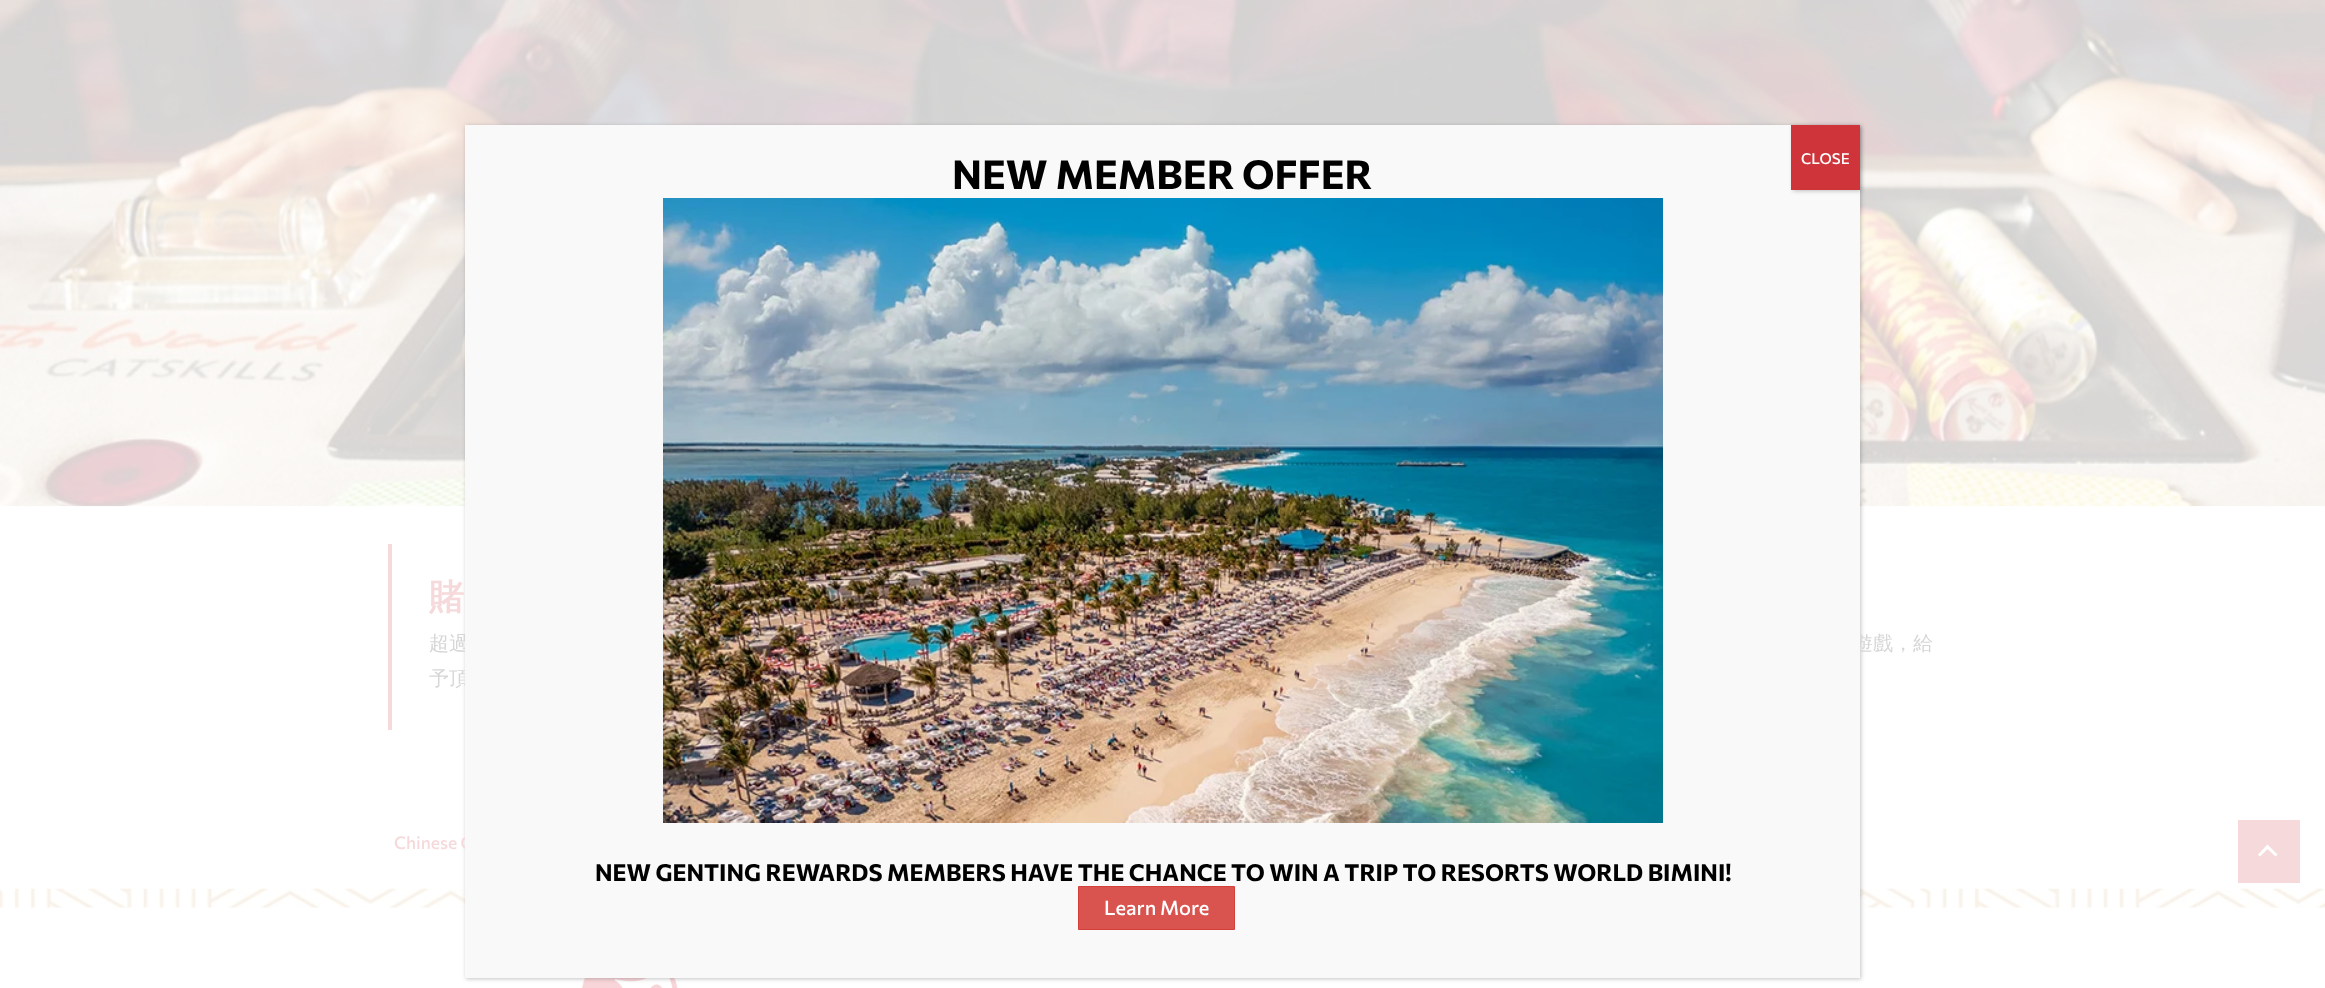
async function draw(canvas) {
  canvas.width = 2325
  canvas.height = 988
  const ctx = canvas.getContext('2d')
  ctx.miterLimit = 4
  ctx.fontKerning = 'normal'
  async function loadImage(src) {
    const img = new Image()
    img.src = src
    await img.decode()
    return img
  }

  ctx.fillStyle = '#fff'
  ctx.fillRect(0, 0, 2325, 988)
  ctx.drawImage(await loadImage('image1.png'), 0, 0, 2325, 507)
  ctx.drawImage(await loadImage('image2.png'), 0, 888, 2325, 20)
  ctx.drawImage(await loadImage('image3.png'), 582, 978, 96, 10)
  ctx.fillStyle = '#0202023b'
  ctx.filter = 'blur(2px)'
  ctx.beginPath()
  ctx.rect(466, 126, 1395, 853)
  ctx.fill()
  ctx.filter = 'none'
  ctx.wordSpacing = '-2px'
  ctx.font = '500 20px WenQuanYi Zen Hei'
  ctx.fillStyle = '#d6d6d6'
  ctx.fillText('超過', 429, 650)
  ctx.fillText('遊戲，給', 1853, 650)
  ctx.wordSpacing = '0px'
  ctx.fillText('予頂', 429, 685)
  ctx.font = '500 17.5px Commissioner'
  ctx.fillStyle = '#f6dadb'
  ctx.fillText('Chinese C', 394, 849)
  ctx.fillStyle = '#f9f9f9'
  ctx.fillRect(465, 125, 1395, 853)
  ctx.font = 'bold 40px Commissioner'
  ctx.fillStyle = '#000'
  ctx.fillText('NEW MEMBER OFFER', 952, 189)
  ctx.drawImage(await loadImage('image0.png'), 663, 198, 1000, 625)
  ctx.font = 'bold 23.4px Commissioner'
  ctx.fillText('NEW GENTING REWARDS MEMBERS HAVE THE CHANCE TO WIN A TRIP TO RESORTS WORLD BIMINI!', 595, 881)
  ctx.fillStyle = '#d9534f'
  ctx.beginPath()
  ctx.rect(1078.5, 886.5, 156, 43)
  ctx.fill()
  ctx.strokeStyle = '#d43f3a'
  ctx.stroke()
  ctx.font = '500 20px Commissioner'
  ctx.fillStyle = '#fff'
  ctx.fillText('Learn More', 1104, 915)
  ctx.fillStyle = '#0202023b'
  ctx.filter = 'blur(2px)'
  ctx.beginPath()
  ctx.rect(1793, 126, 68, 65)
  ctx.fill()
  ctx.filter = 'none'
  ctx.fillStyle = '#ce3439'
  ctx.fillRect(1791, 125, 69, 65)
  ctx.font = '500 15px Commissioner'
  ctx.fillStyle = '#fff'
  ctx.fillText('CLOSE', 1801, 164)
  ctx.fillStyle = '#f6dadb'
  ctx.fillRect(388, 544, 4, 186)
  ctx.font = 'bold 35px WenQuanYi Zen Hei'
  ctx.fillText('賭', 429, 609)
  ctx.fillRect(2238, 820, 62, 63)
  ctx.fillStyle = '#fff'
  ctx.beginPath()
  ctx.moveTo(2275.5, 856.5)
  ctx.lineTo(2267.5, 849)
  ctx.lineTo(2260, 856.5)
  ctx.lineTo(2258, 854.5)
  ctx.lineTo(2267.5, 844.5)
  ctx.lineTo(2277.5, 854.5)
  ctx.closePath()
  ctx.fill()
}

draw(document.querySelector('canvas'))
